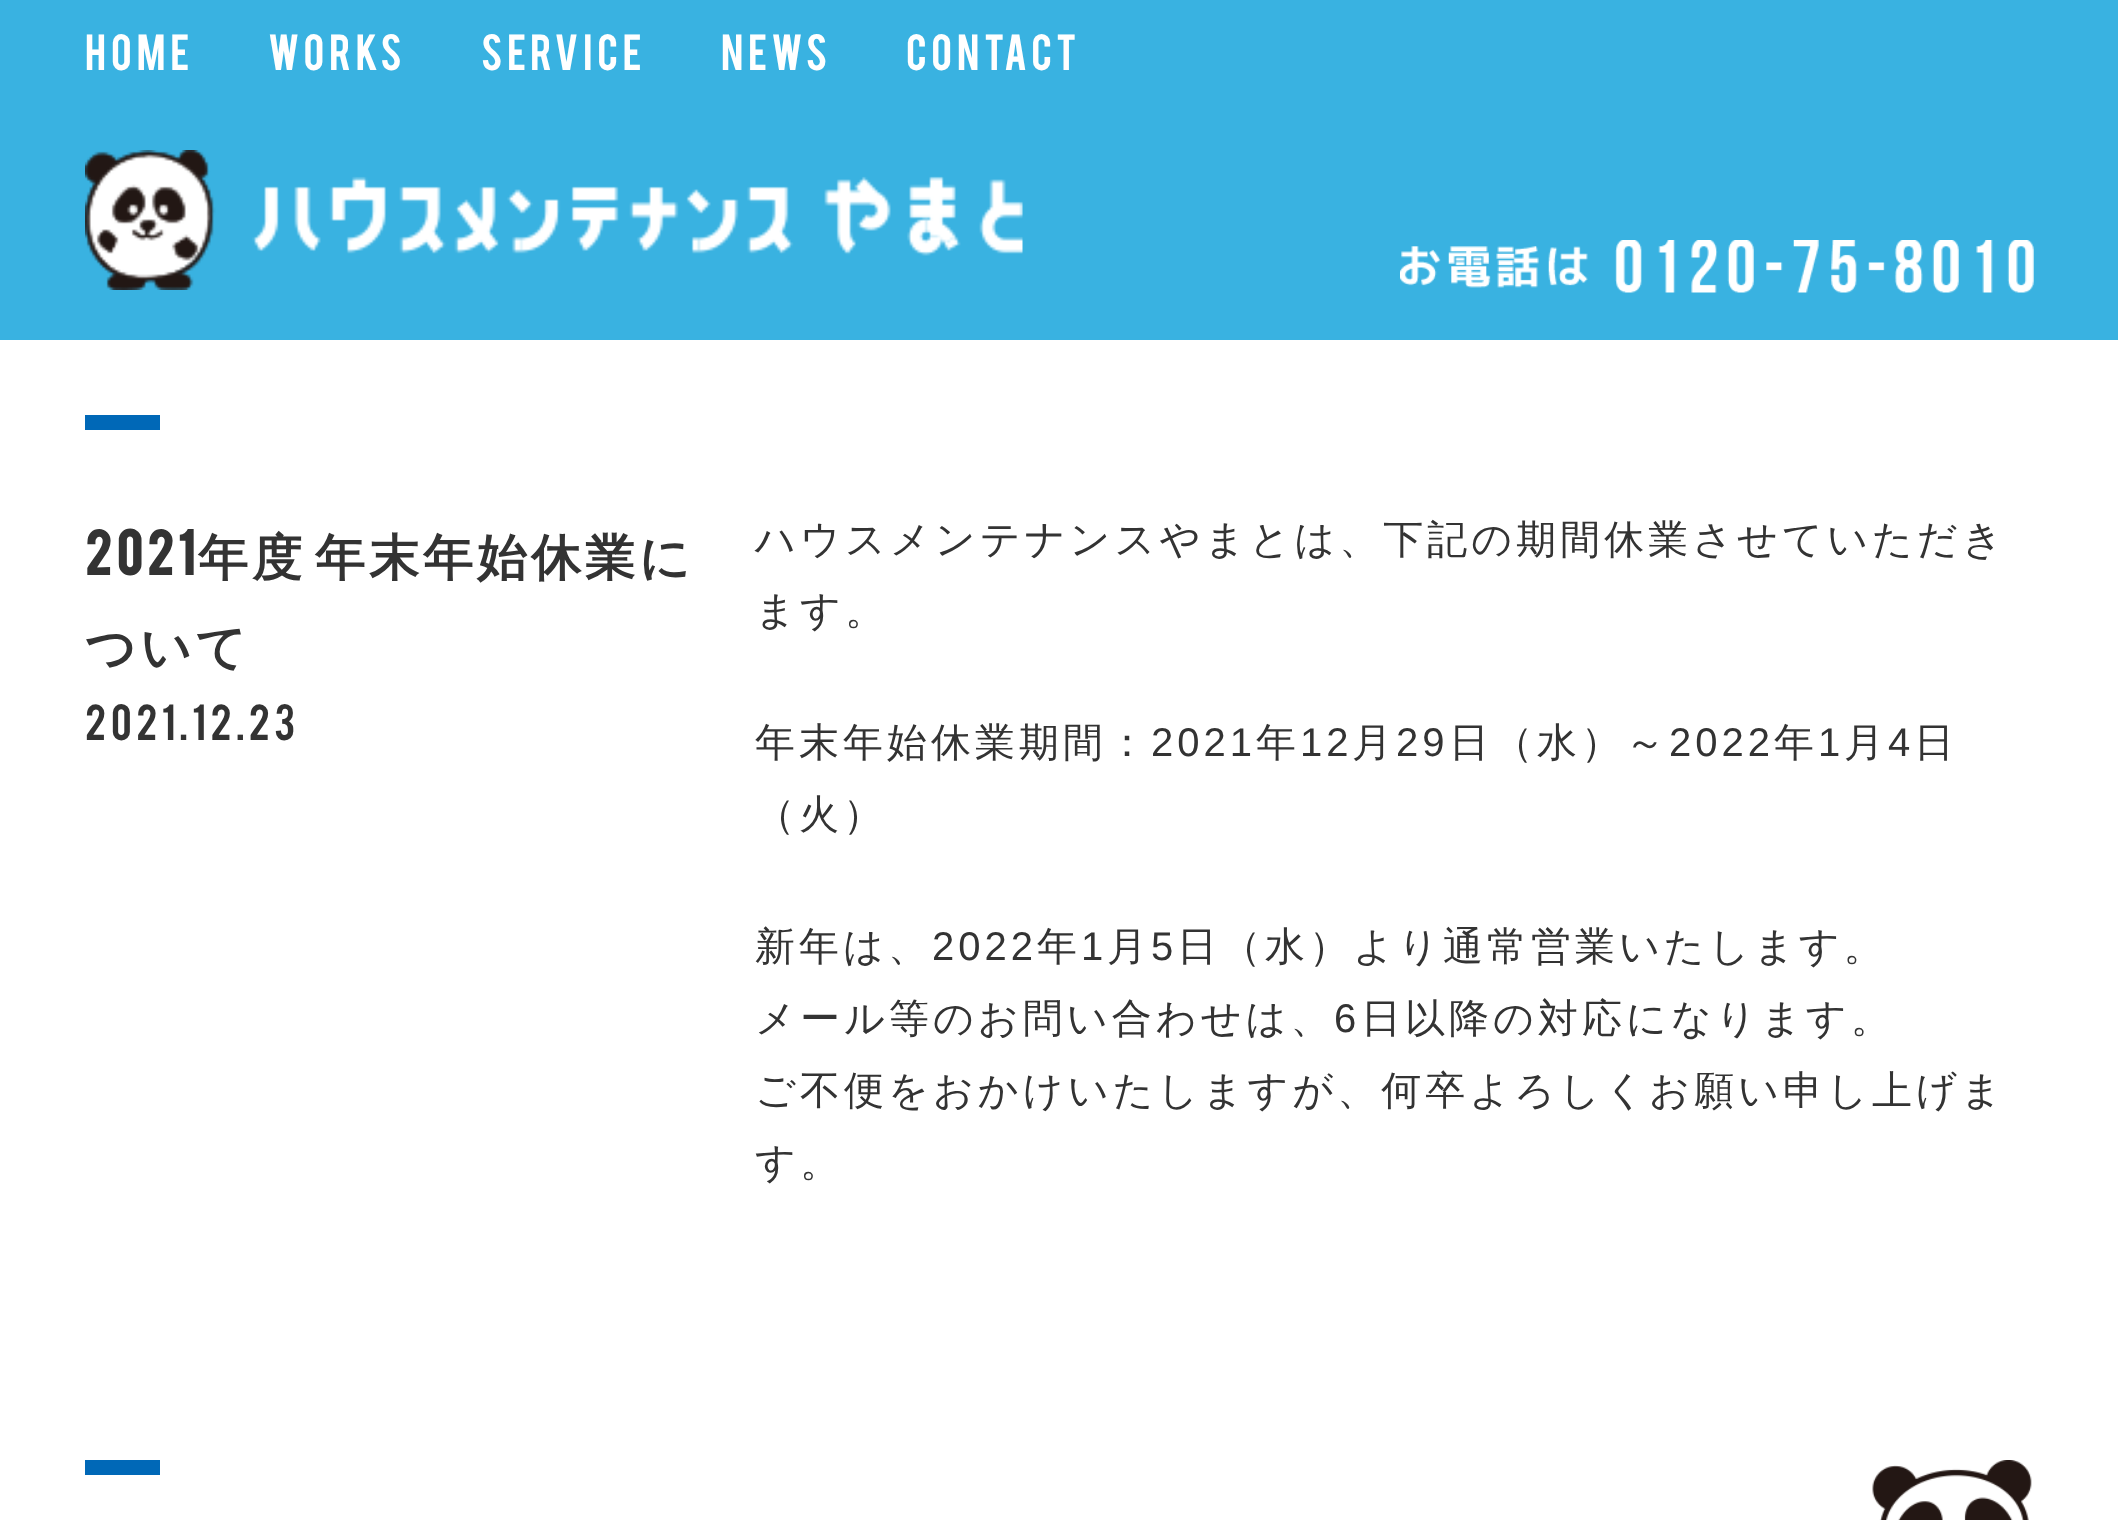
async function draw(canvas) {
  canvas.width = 2118
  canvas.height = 1520
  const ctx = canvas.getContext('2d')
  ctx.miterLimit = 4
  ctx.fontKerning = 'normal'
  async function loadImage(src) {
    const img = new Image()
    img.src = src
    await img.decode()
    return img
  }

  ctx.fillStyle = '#39b2e1'
  ctx.fillRect(0, 0, 2118, 1520)
  ctx.letterSpacing = '4px'
  ctx.font = '40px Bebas'
  ctx.fillStyle = '#fff'
  ctx.fillText('HOME', 85, 70)
  ctx.fillText('WORKS', 268, 70)
  ctx.fillText('SERVICE', 481, 70)
  ctx.fillText('NEWS', 721, 70)
  ctx.fillText('CONTACT', 906, 70)
  ctx.drawImage(await loadImage('image0.png'), 85, 150, 938, 140)
  ctx.drawImage(await loadImage('image1.png'), 1400, 240, 634, 53)
  ctx.fillRect(0, 340, 2118, 1180)
  ctx.fillStyle = '#0068b7'
  ctx.fillRect(85, 415, 75, 15)
  ctx.font = 'bold 50px Bebas'
  ctx.fillStyle = '#333'
  ctx.fillText('2021', 85, 575)
  ctx.wordSpacing = '-10px'
  ctx.font = 'bold 50px WenQuanYi Zen Hei'
  ctx.fillText('年度 年末年始休業に', 198, 575)
  ctx.wordSpacing = '0px'
  ctx.fillText('ついて', 85, 665)
  ctx.font = '40px Bebas'
  ctx.fillText('2021.12.23', 85, 740)
  ctx.font = '500 40px WenQuanYi Zen Hei'
  ctx.fillText('ハウスメンテナンスやまとは、下記の期間休業させていただき', 755, 553)
  ctx.fillText('ます。', 755, 624)
  ctx.fillText('年末年始休業期間：', 755, 756)
  ctx.font = '40px Liberation Sans'
  ctx.fillText('2021', 1151, 756)
  ctx.font = '500 40px WenQuanYi Zen Hei'
  ctx.fillText('年', 1256, 756)
  ctx.font = '40px Liberation Sans'
  ctx.fillText('12', 1300, 756)
  ctx.font = '500 40px WenQuanYi Zen Hei'
  ctx.fillText('月', 1352, 756)
  ctx.font = '40px Liberation Sans'
  ctx.fillText('29', 1396, 756)
  ctx.font = '500 40px WenQuanYi Zen Hei'
  ctx.fillText('日（水）～', 1449, 756)
  ctx.font = '40px Liberation Sans'
  ctx.fillText('2022', 1669, 756)
  ctx.font = '500 40px WenQuanYi Zen Hei'
  ctx.fillText('年', 1774, 756)
  ctx.font = '40px Liberation Sans'
  ctx.fillText('1', 1818, 756)
  ctx.font = '500 40px WenQuanYi Zen Hei'
  ctx.fillText('月', 1844, 756)
  ctx.font = '40px Liberation Sans'
  ctx.fillText('4', 1888, 756)
  ctx.font = '500 40px WenQuanYi Zen Hei'
  ctx.fillText('日', 1914, 756)
  ctx.fillText('（火）', 755, 828)
  ctx.fillText('新年は、', 755, 960)
  ctx.font = '40px Liberation Sans'
  ctx.fillText('2022', 932, 960)
  ctx.font = '500 40px WenQuanYi Zen Hei'
  ctx.fillText('年', 1037, 960)
  ctx.font = '40px Liberation Sans'
  ctx.fillText('1', 1081, 960)
  ctx.font = '500 40px WenQuanYi Zen Hei'
  ctx.fillText('月', 1107, 960)
  ctx.font = '40px Liberation Sans'
  ctx.fillText('5', 1151, 960)
  ctx.font = '500 40px WenQuanYi Zen Hei'
  ctx.fillText('日（水）より通常営業いたします。', 1177, 960)
  ctx.fillText('メール等のお問い合わせは、', 755, 1032)
  ctx.font = '40px Liberation Sans'
  ctx.fillText('6', 1334, 1032)
  ctx.font = '500 40px WenQuanYi Zen Hei'
  ctx.fillText('日以降の対応になります。', 1361, 1032)
  ctx.fillText('ご不便をおかけいたしますが、何卒よろしくお願い申し上げま', 755, 1104)
  ctx.fillText('す。', 755, 1176)
  ctx.drawImage(await loadImage('image2.png'), 1872, 1460, 160, 60)
  ctx.fillStyle = '#0068b7'
  ctx.fillRect(85, 1460, 75, 15)
}

draw(document.querySelector('canvas'))
